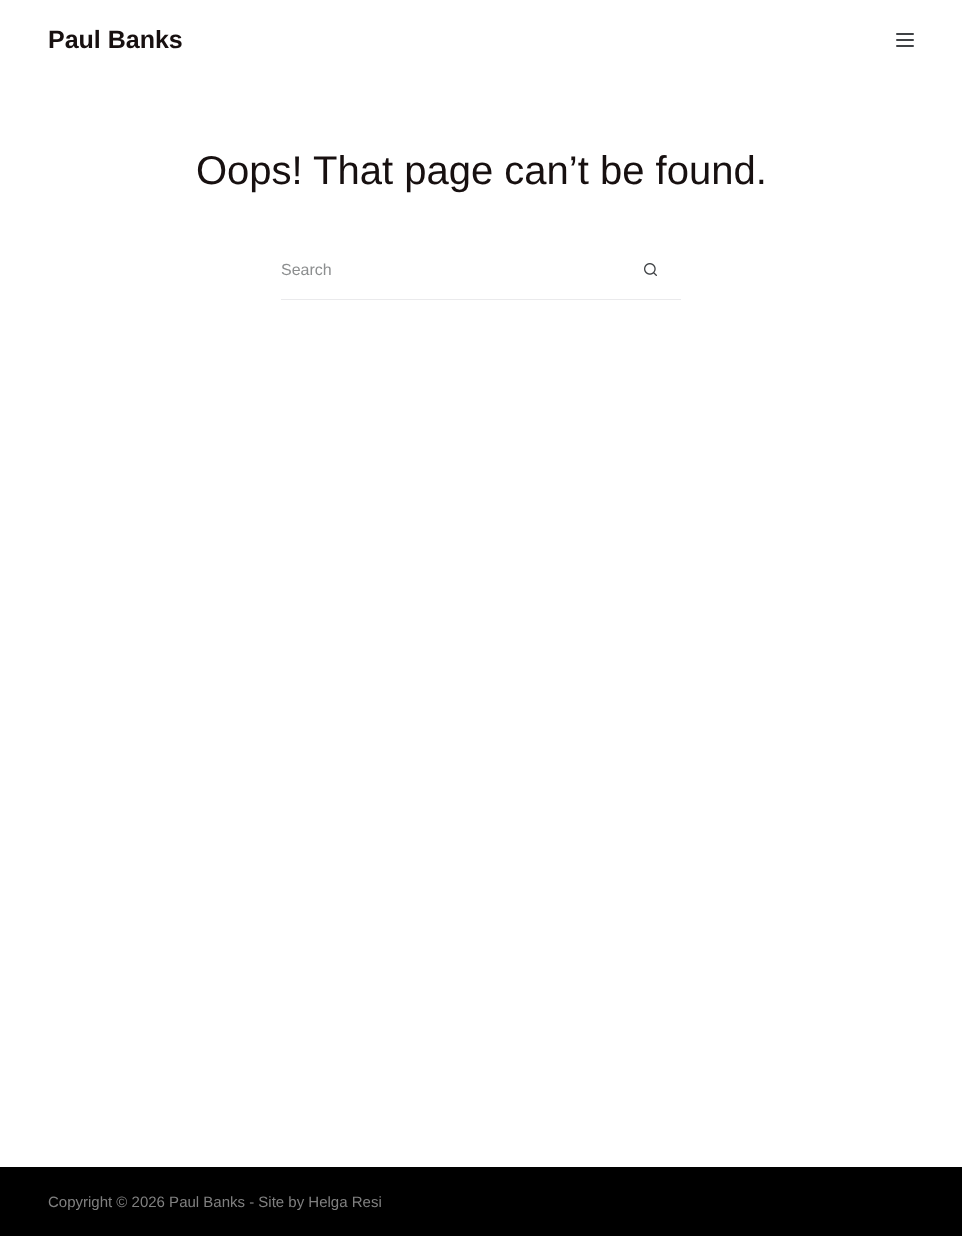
async function draw(canvas) {
  canvas.width = 962
  canvas.height = 1236
  const ctx = canvas.getContext('2d')
  ctx.miterLimit = 4
  ctx.fontKerning = 'normal'
  async function loadImage(src) {
    const img = new Image()
    img.src = src
    await img.decode()
    return img
  }

  ctx.fillStyle = '#fff'
  ctx.fillRect(0, 0, 962, 1236)
  ctx.font = 'bold 25px Liberation Sans'
  ctx.fillStyle = '#171010'
  ctx.fillText('Paul Banks', 48, 48)
  ctx.fillStyle = '#3f4245'
  ctx.beginPath()
  ctx.roundRect(896, 33, 18, 2, 1)
  ctx.fill()
  ctx.beginPath()
  ctx.roundRect(896, 39, 18, 2, 1)
  ctx.fill()
  ctx.beginPath()
  ctx.roundRect(896, 45, 18, 2, 1)
  ctx.fill()
  ctx.font = '40px Liberation Sans'
  ctx.fillStyle = '#171010'
  ctx.fillText('Oops! That page can’t be found.', 196, 184)
  ctx.fillStyle = '#eaeaec'
  ctx.fillRect(281, 299, 400, 1)
  ctx.font = '16px Liberation Sans'
  ctx.fillStyle = '#8c8e8f'
  ctx.fillText('Search', 281, 275)
  ctx.drawImage(await loadImage('image0.png'), 644, 263, 13, 13)
  ctx.fillStyle = '#000'
  ctx.fillRect(0, 1167, 962, 69)
  ctx.font = '15px Liberation Sans'
  ctx.fillStyle = '#808080'
  ctx.fillText('Copyright © 2026 Paul Banks - Site by Helga Resi', 48, 1207)
}

draw(document.querySelector('canvas'))
